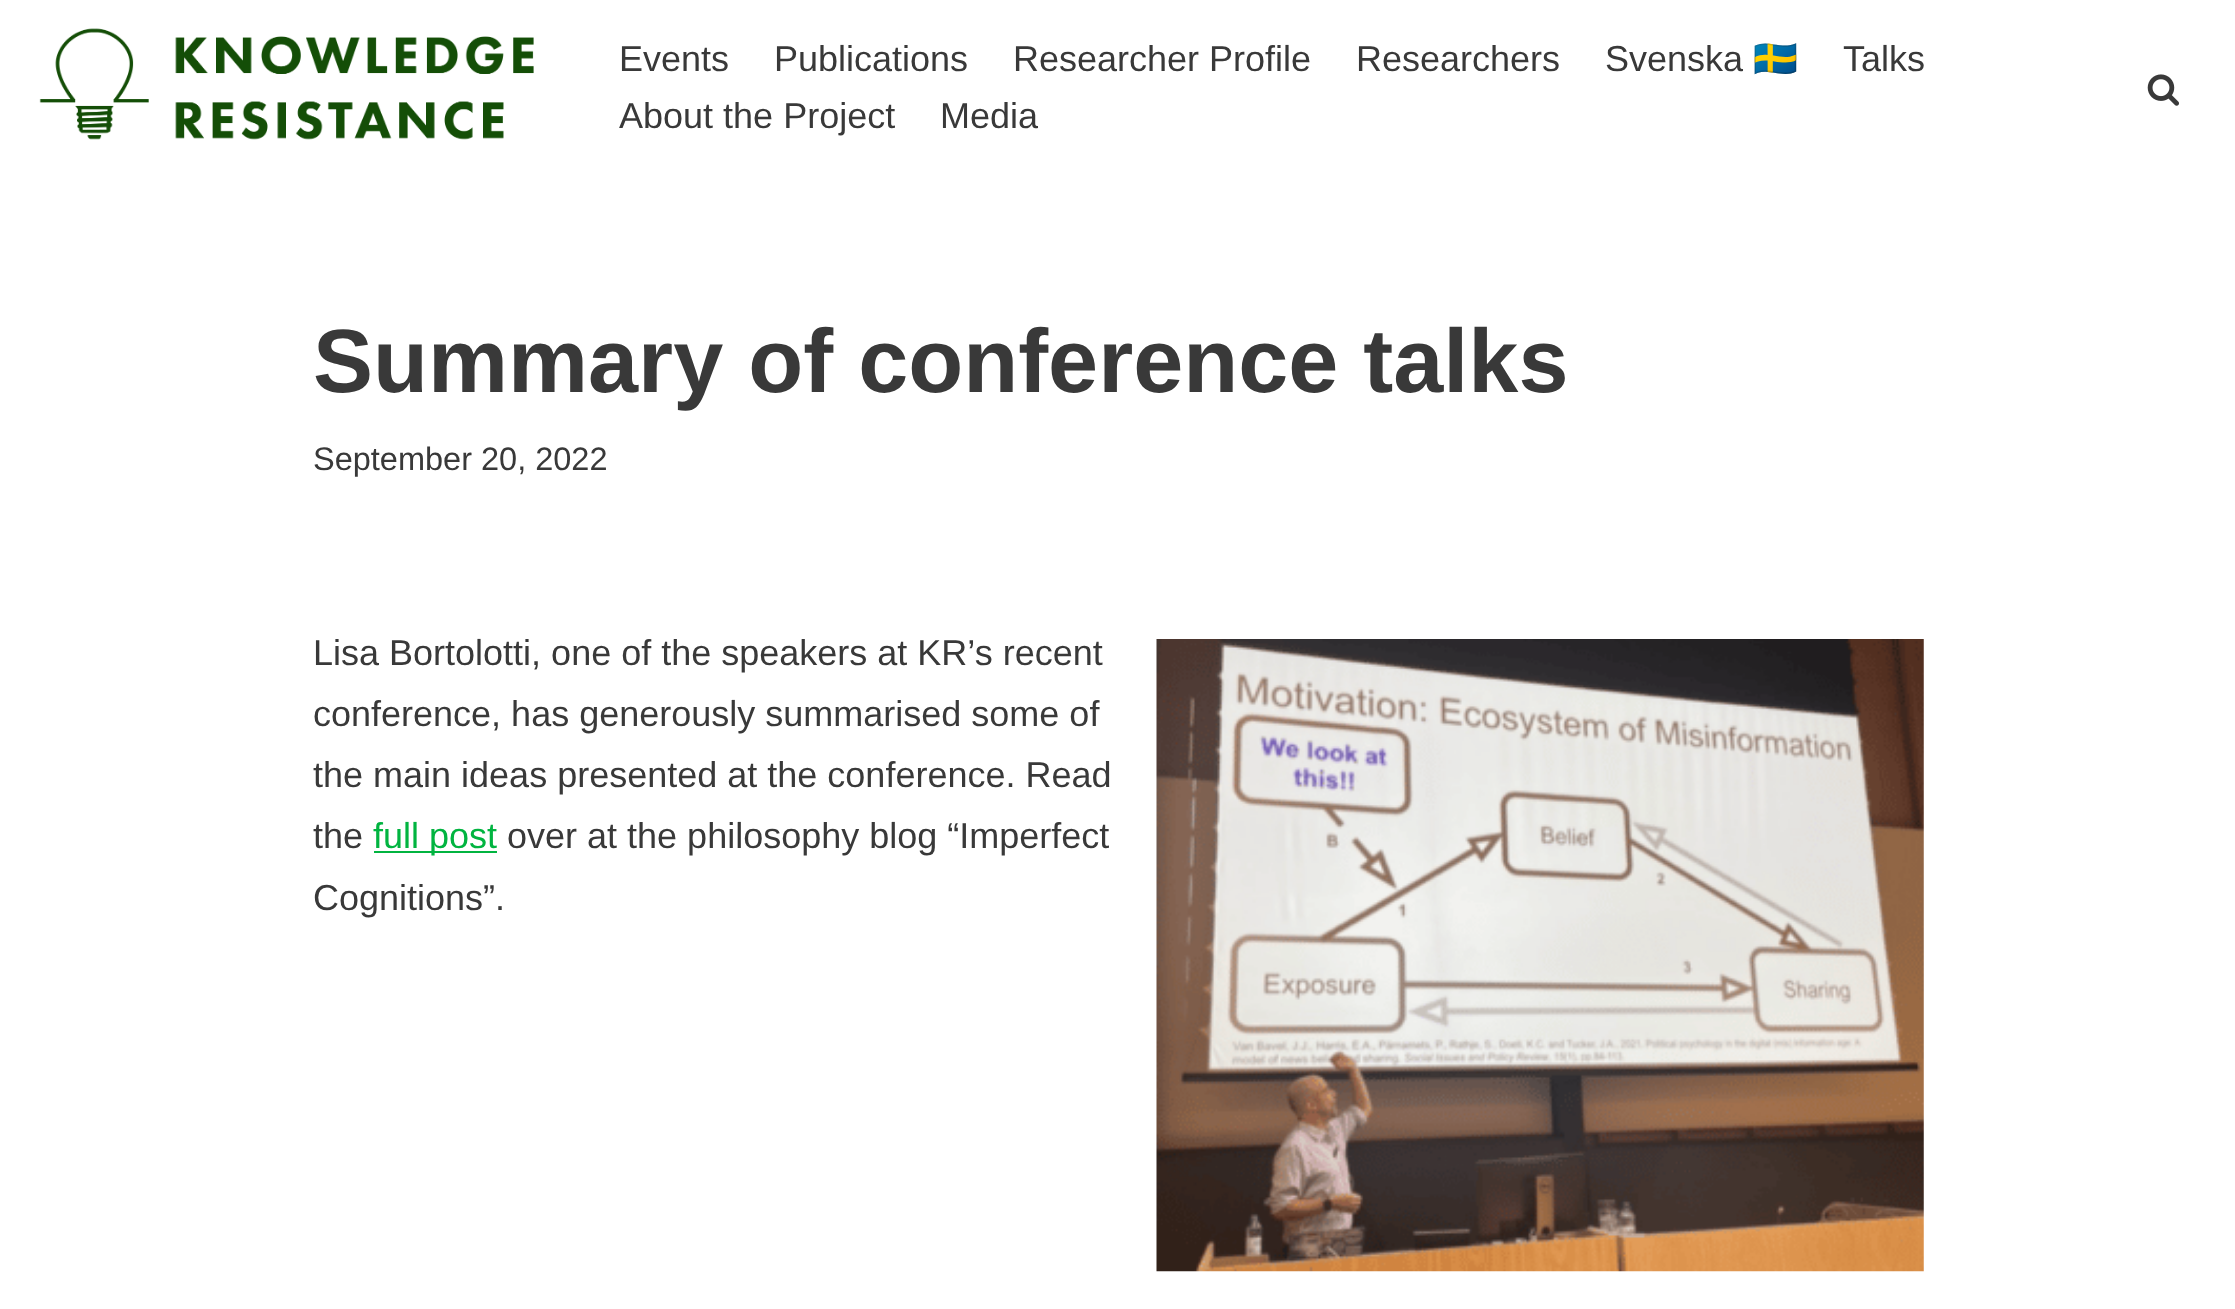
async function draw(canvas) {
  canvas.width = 2235
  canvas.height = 1309
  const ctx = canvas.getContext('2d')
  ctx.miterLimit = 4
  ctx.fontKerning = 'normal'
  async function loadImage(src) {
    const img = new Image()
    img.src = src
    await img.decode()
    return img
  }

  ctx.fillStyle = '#fff'
  ctx.fillRect(0, 0, 2235, 1309)
  ctx.drawImage(await loadImage('image0.png'), 39, 28, 495, 112)
  ctx.font = '36px Liberation Sans'
  ctx.fillStyle = '#393939'
  ctx.fillText('Events', 619, 71)
  ctx.fillText('Publications', 774, 71)
  ctx.fillText('Researcher Profile', 1013, 71)
  ctx.fillText('Researchers', 1356, 71)
  ctx.fillText('Svenska', 1605, 71)
  ctx.font = '36px Noto Color Emoji'
  ctx.fillText('🇸🇪', 1753, 71)
  ctx.font = '36px Liberation Sans'
  ctx.fillText('Talks', 1843, 71)
  ctx.fillText('About the Project', 619, 128)
  ctx.fillText('Media', 940, 128)
  ctx.drawImage(await loadImage('image1.png'), 2147, 74, 32, 32)
  ctx.font = 'bold 90px Liberation Sans'
  ctx.fillText('Summary of conference talks', 313, 392)
  ctx.font = '32.5px Liberation Sans'
  ctx.fillText('September 20, 2022', 313, 470)
  ctx.font = '36px Liberation Sans'
  ctx.fillText('Lisa Bortolotti, one of the speakers at KR’s recent', 313, 665)
  ctx.fillText('conference, has generously summarised some of', 313, 726)
  ctx.fillText('the main ideas presented at the conference. Read', 313, 787)
  ctx.fillText('the', 313, 848)
  ctx.fillStyle = '#01b440'
  ctx.fillRect(374, 851, 123, 2)
  ctx.fillText('full post', 373, 848)
  ctx.fillStyle = '#393939'
  ctx.fillText('over at the philosophy blog “Imperfect', 507, 848)
  ctx.fillText('Cognitions”.', 313, 910)
  ctx.drawImage(await loadImage('image2.png'), 1156, 639, 768, 633)
}

draw(document.querySelector('canvas'))
